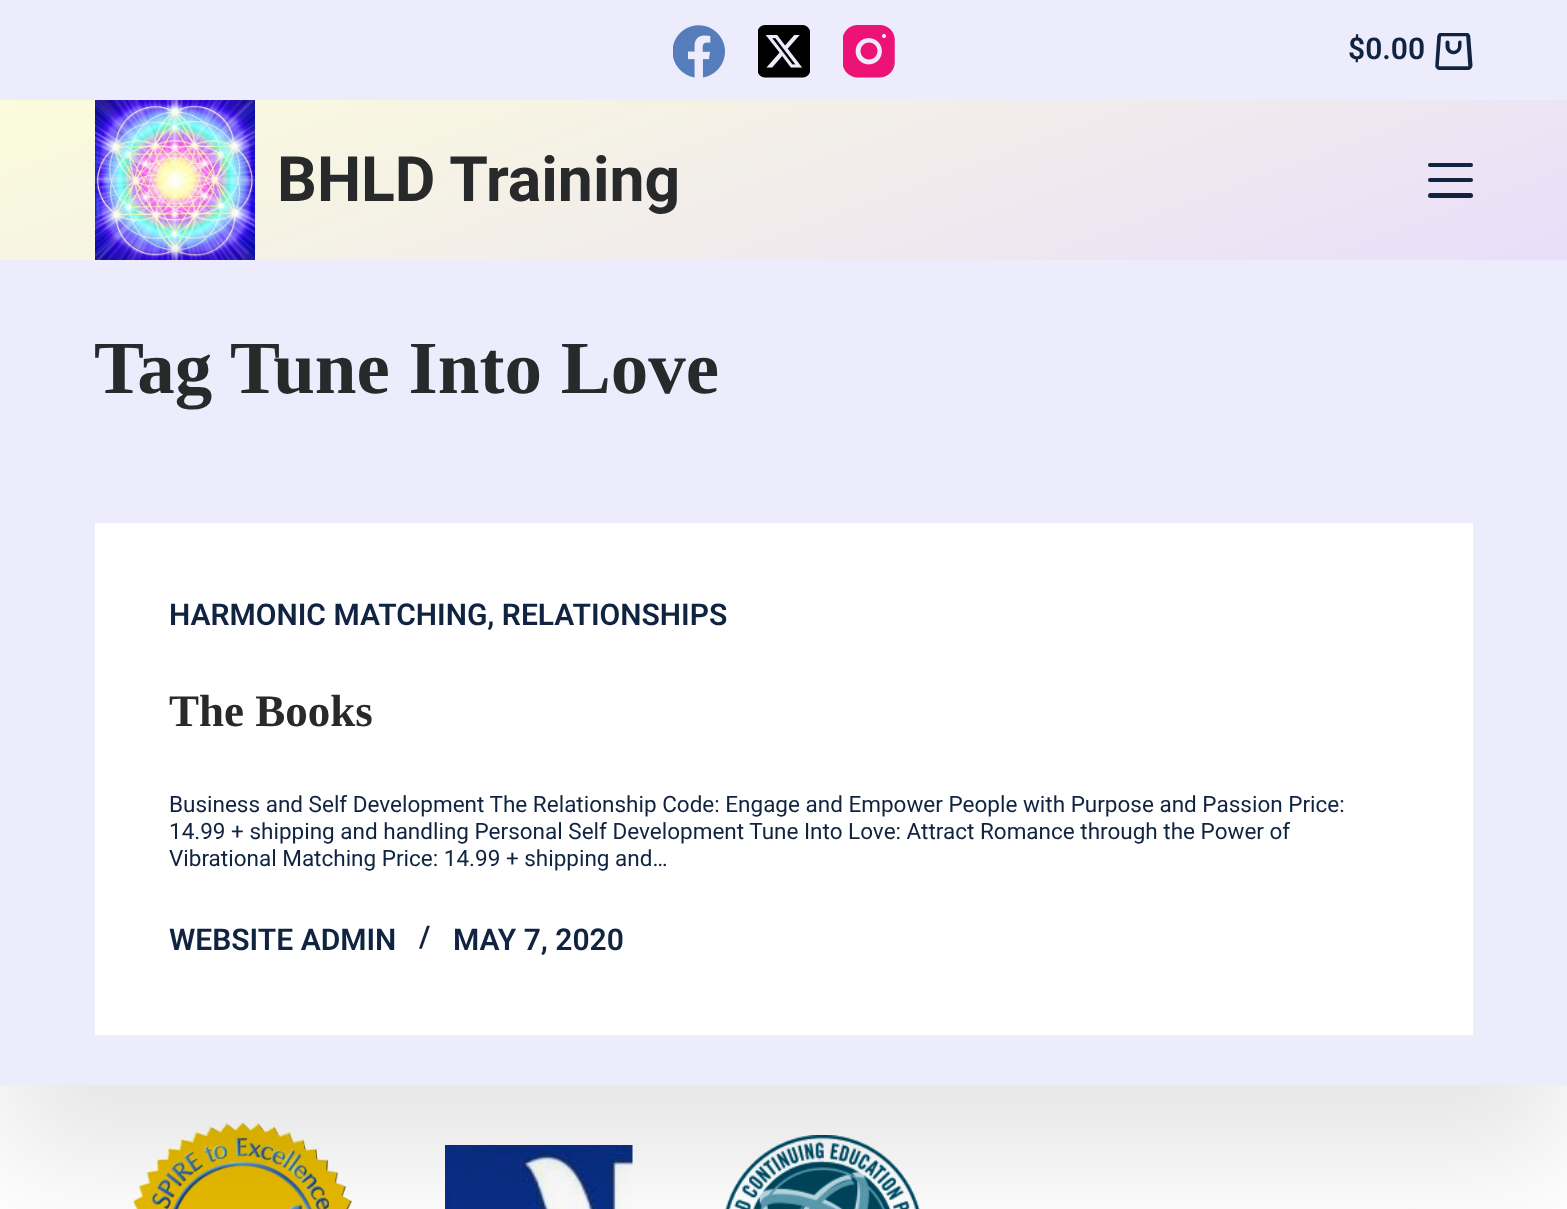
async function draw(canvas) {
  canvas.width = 1567
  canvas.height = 1209
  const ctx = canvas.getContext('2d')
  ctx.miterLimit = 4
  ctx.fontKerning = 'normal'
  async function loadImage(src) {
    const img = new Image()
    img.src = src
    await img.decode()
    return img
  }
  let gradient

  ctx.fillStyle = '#ececfc'
  ctx.fillRect(0, 0, 1567, 1209)
  ctx.drawImage(await loadImage('image0.png'), 673, 25, 52, 53)
  ctx.drawImage(await loadImage('image1.png'), 758, 25, 52, 53)
  ctx.drawImage(await loadImage('image2.png'), 843, 25, 52, 53)
  ctx.font = '600 30px Roboto'
  ctx.fillStyle = '#102341'
  ctx.fillText('$0.00', 1348, 59)
  ctx.drawImage(await loadImage('image3.png'), 1435, 33, 38, 37)
  ctx.fillStyle = '#fff'
  ctx.fillRect(0, 1085, 1567, 124)
  ctx.drawImage(await loadImage('image5.png'), 133, 1122, 219, 87)
  ctx.drawImage(await loadImage('image6.png'), 445, 1145, 188, 64)
  ctx.drawImage(await loadImage('image7.png'), 725, 1135, 195, 74)
  ctx.fillStyle = '#fffffa'
  ctx.fillRect(1413, 1208, 4, 1)
  ctx.save()
  ctx.beginPath()
  ctx.rect(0, 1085, 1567, 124)
  ctx.clip()
  ctx.fillStyle = '#0000001a'
  ctx.filter = 'blur(62.5px)'
  ctx.beginPath()
  ctx.rect(0, 335, 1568, 825)
  ctx.fill()
  ctx.filter = 'none'
  ctx.restore()
  gradient = ctx.createLinearGradient(901, 503, 666, -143)
  gradient.addColorStop(0, '#e9defa')
  gradient.addColorStop(1, '#fbfcdb')
  ctx.fillStyle = gradient
  ctx.fillRect(0, 100, 1567, 160)
  ctx.drawImage(await loadImage('image4.png'), 95, 100, 160, 160)
  ctx.font = 'bold 62.5px Roboto'
  ctx.fillStyle = '#28292a'
  ctx.fillText('BHLD Training', 277, 201)
  ctx.fillStyle = '#102341'
  ctx.beginPath()
  ctx.roundRect(1428, 163, 45, 4, 2)
  ctx.fill()
  ctx.beginPath()
  ctx.roundRect(1428, 178, 45, 4, 2)
  ctx.fill()
  ctx.beginPath()
  ctx.roundRect(1428, 193, 45, 5, 2.5)
  ctx.fill()
  ctx.font = 'bold 75px Liberation Serif'
  ctx.fillStyle = '#28292a'
  ctx.fillText('Tag', 94, 393)
  ctx.fillText('Tune Into Love', 230, 393)
  ctx.fillStyle = '#fff'
  ctx.fillRect(95, 523, 1378, 512)
  ctx.font = '600 30px Roboto'
  ctx.fillStyle = '#102341'
  ctx.fillText('HARMONIC MATCHING, RELATIONSHIPS', 169, 625)
  ctx.font = 'bold 45px Liberation Serif'
  ctx.fillStyle = '#28292a'
  ctx.fillText('The Books', 169, 726)
  ctx.font = '22.5px Roboto'
  ctx.fillStyle = '#102341'
  ctx.fillText('Business and Self Development The Relationship Code: Engage and Empower People with Purpose and Passion Price:', 169, 812)
  ctx.fillText('14.99 + shipping and handling Personal Self Development Tune Into Love: Attract Romance through the Power of', 169, 839)
  ctx.fillText('Vibrational Matching Price: 14.99 + shipping and…', 169, 866)
  ctx.font = '600 30px Roboto'
  ctx.fillText('WEBSITE ADMIN', 169, 950)
  ctx.fillText('/', 419, 947)
  ctx.fillText('MAY 7, 2020', 453, 950)
}

draw(document.querySelector('canvas'))
